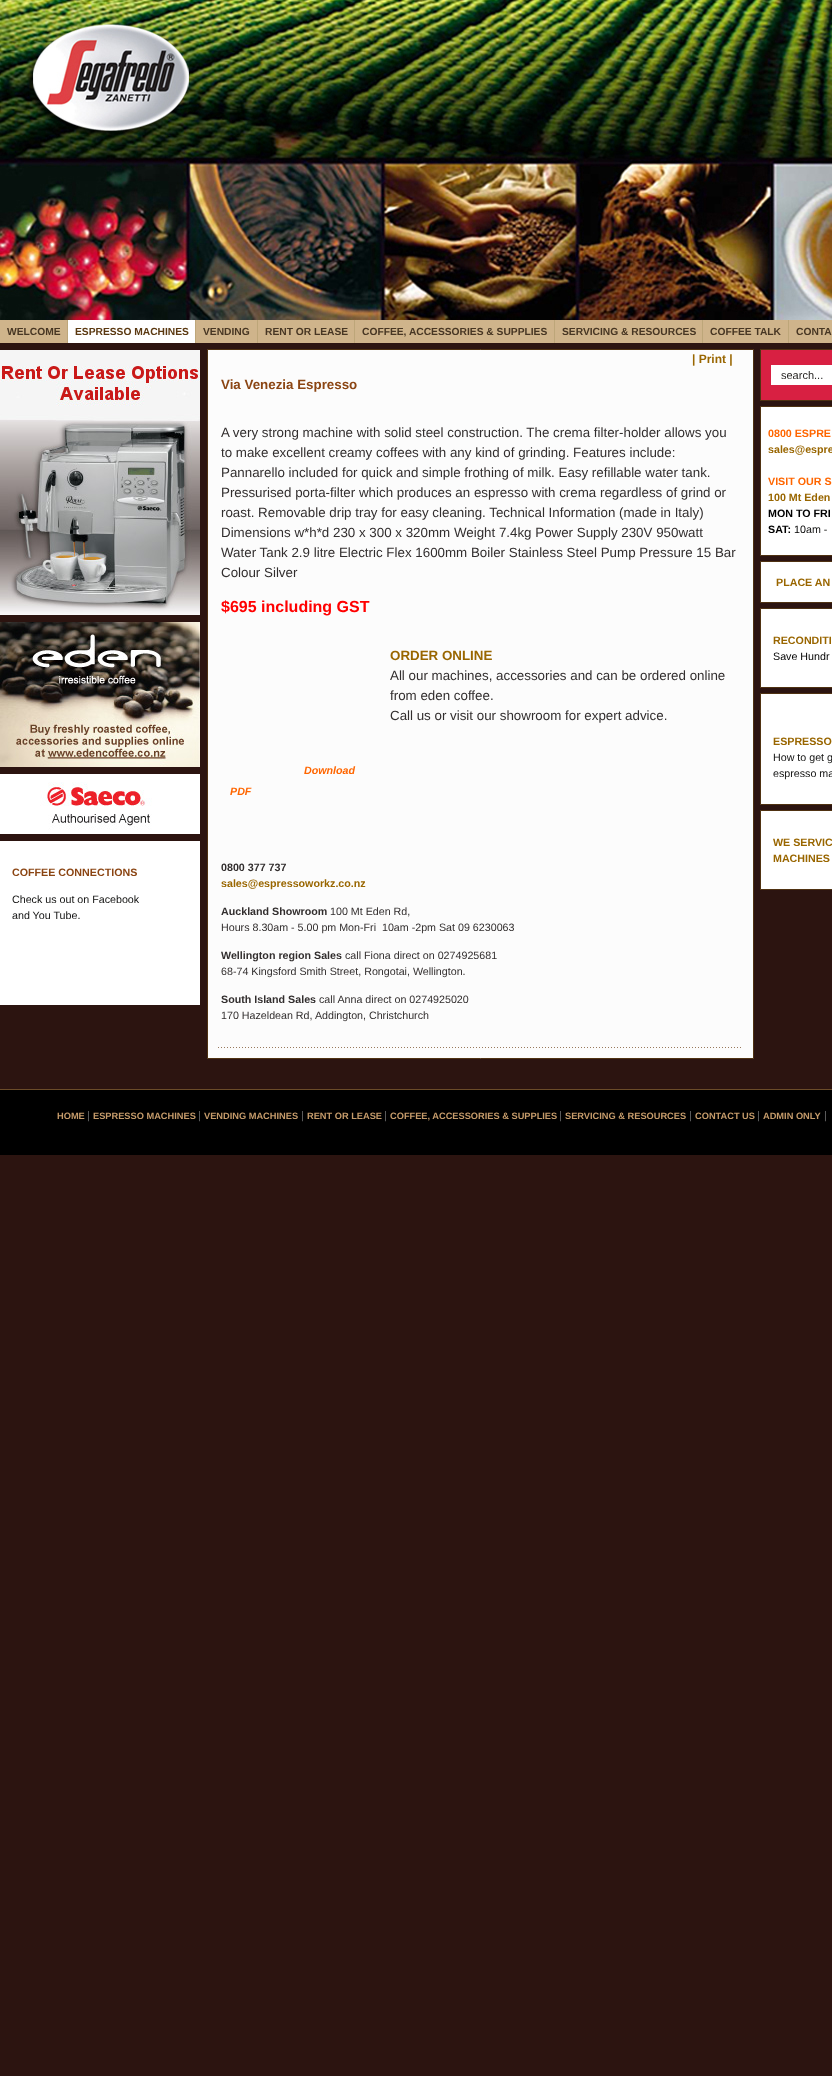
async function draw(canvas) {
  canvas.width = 832
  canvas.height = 2076
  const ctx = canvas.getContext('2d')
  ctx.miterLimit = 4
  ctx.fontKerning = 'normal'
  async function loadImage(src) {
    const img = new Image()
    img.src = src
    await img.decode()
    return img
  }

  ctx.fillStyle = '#2c1410'
  ctx.fillRect(0, 0, 832, 2076)
  ctx.drawImage(await loadImage('image0.png'), 0, 0, 832, 320)
  ctx.fillStyle = '#bda679'
  ctx.fillRect(67, 320, 722, 23)
  ctx.fillStyle = '#cfb48b'
  ctx.fillRect(0, 320, 67, 23)
  ctx.font = 'bold 10.25px Liberation Sans'
  ctx.fillStyle = '#473623'
  ctx.fillText('WELCOME', 7, 335)
  ctx.fillStyle = '#fefefe'
  ctx.fillRect(68, 320, 127, 23)
  ctx.fillStyle = '#5a3810'
  ctx.fillText('ESPRESSO MACHINES', 75, 335)
  ctx.fillStyle = '#cfb48b'
  ctx.fillRect(196, 320, 61, 23)
  ctx.fillStyle = '#473623'
  ctx.fillText('VENDING', 203, 335)
  ctx.fillStyle = '#cfb48b'
  ctx.fillRect(258, 320, 96, 23)
  ctx.fillStyle = '#473623'
  ctx.fillText('RENT OR LEASE', 265, 335)
  ctx.fillStyle = '#cfb48b'
  ctx.fillRect(355, 320, 199, 23)
  ctx.fillStyle = '#473623'
  ctx.fillText('COFFEE, ACCESSORIES & SUPPLIES', 362, 335)
  ctx.fillStyle = '#cfb48b'
  ctx.fillRect(555, 320, 147, 23)
  ctx.fillStyle = '#473623'
  ctx.fillText('SERVICING & RESOURCES', 562, 335)
  ctx.fillStyle = '#cfb48b'
  ctx.fillRect(703, 320, 85, 23)
  ctx.fillStyle = '#473623'
  ctx.fillText('COFFEE TALK', 710, 335)
  ctx.fillStyle = '#cfb48b'
  ctx.fillRect(789, 320, 43, 23)
  ctx.fillStyle = '#473623'
  ctx.fillText('CONTA', 796, 335)
  ctx.drawImage(await loadImage('image1.png'), 0, 350, 200, 265)
  ctx.drawImage(await loadImage('image2.png'), 0, 622, 200, 145)
  ctx.drawImage(await loadImage('image3.png'), 0, 774, 200, 60)
  ctx.fillStyle = '#fff'
  ctx.fillRect(0, 841, 200, 164)
  ctx.font = 'bold 10.7px Liberation Sans'
  ctx.fillStyle = '#8b4513'
  ctx.fillText('COFFEE CONNECTIONS', 12, 876)
  ctx.font = '10.7px Liberation Sans'
  ctx.fillStyle = '#121211'
  ctx.fillText('Check us out on Facebook', 12, 903)
  ctx.fillText('and You Tube.', 12, 919)
  ctx.fillStyle = '#fcfcfc'
  ctx.beginPath()
  ctx.rect(207.5, 349.5, 546, 709)
  ctx.fill()
  ctx.strokeStyle = '#4f3212'
  ctx.stroke()
  ctx.font = 'bold 12px Liberation Sans'
  ctx.fillStyle = '#960'
  ctx.fillText('| Print |', 692, 363)
  ctx.font = 'bold 13.35px Liberation Sans'
  ctx.fillStyle = '#8b4513'
  ctx.fillText('Via Venezia Espresso', 221, 389)
  ctx.font = '13.35px Liberation Sans'
  ctx.fillStyle = '#322e2e'
  ctx.fillText('A very strong machine with solid steel construction. The crema filter-holder allows you', 221, 437)
  ctx.fillText('to make excellent creamy coffees with any kind of grinding. Features include:', 221, 457)
  ctx.fillText('Pannarello included for quick and simple frothing of milk. Easy refillable water tank.', 221, 477)
  ctx.fillText('Pressurised porta-filter which produces an espresso with crema regardless of grind or', 221, 497)
  ctx.fillText('roast. Removable drip tray for easy cleaning. Technical Information (made in Italy)', 221, 517)
  ctx.fillText('Dimensions w*h*d 230 x 300 x 320mm Weight 7.4kg Power Supply 230V 950watt', 221, 537)
  ctx.fillText('Water Tank 2.9 litre Electric Flex 1600mm Boiler Stainless Steel Pump Pressure 15 Bar', 221, 557)
  ctx.fillText('Colour Silver', 221, 577)
  ctx.font = 'bold 16px Liberation Sans'
  ctx.fillStyle = '#f00'
  ctx.fillText('$695 including GST', 221, 612)
  ctx.font = 'bold 13.35px Liberation Sans'
  ctx.fillStyle = '#960'
  ctx.fillText('ORDER ONLINE', 390, 660)
  ctx.font = '13.35px Liberation Sans'
  ctx.fillStyle = '#322e2e'
  ctx.fillText('All our machines, accessories and can be ordered online', 390, 680)
  ctx.fillText('from eden coffee.', 390, 700)
  ctx.fillText('Call us or visit our showroom for expert advice.', 390, 720)
  ctx.font = 'italic bold 10.7px Liberation Sans'
  ctx.fillStyle = '#f60'
  ctx.fillText('Download', 304, 774)
  ctx.fillText('PDF', 230, 795)
  ctx.font = 'bold 10.7px Liberation Sans'
  ctx.fillStyle = '#322e2e'
  ctx.fillText('0800 377 737', 221, 871)
  ctx.fillStyle = '#960'
  ctx.fillText('sales@espressoworkz.co.nz', 221, 887)
  ctx.fillStyle = '#322e2e'
  ctx.fillText('Auckland Showroom', 221, 915)
  ctx.font = '10.7px Liberation Sans'
  ctx.fillText('100 Mt Eden Rd,', 330, 915)
  ctx.fillText('Hours 8.30am - 5.00 pm Mon-Fri  10am -2pm Sat 09 6230063', 221, 931)
  ctx.font = 'bold 10.7px Liberation Sans'
  ctx.fillText('Wellington region Sales', 221, 959)
  ctx.font = '10.7px Liberation Sans'
  ctx.fillText('call Fiona direct on 0274925681', 345, 959)
  ctx.fillText('68-74 Kingsford Smith Street, Rongotai, Wellington.', 221, 975)
  ctx.font = 'bold 10.7px Liberation Sans'
  ctx.fillText('South Island Sales', 221, 1003)
  ctx.font = '10.7px Liberation Sans'
  ctx.fillText('call Anna direct on 0274925020', 319, 1003)
  ctx.fillText('170 Hazeldean Rd, Addington, Christchurch', 221, 1019)
  ctx.drawImage(await loadImage('image4.png'), 218, 1047, 523, 1)
  ctx.strokeRect(760.5, 349.5, 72, 51)
  ctx.fillStyle = '#d82042'
  ctx.fillRect(761, 350, 71, 50)
  ctx.fillStyle = '#fff'
  ctx.fillRect(771, 365, 61, 20)
  ctx.font = '11px Liberation Sans'
  ctx.fillStyle = '#282624'
  ctx.fillText('search...', 781, 379)
  ctx.fillStyle = '#fff'
  ctx.beginPath()
  ctx.rect(760.5, 406.5, 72, 149)
  ctx.fill()
  ctx.stroke()
  ctx.font = 'bold 10.7px Liberation Sans'
  ctx.fillStyle = '#f60'
  ctx.fillText('0800 ESPRE', 768, 437)
  ctx.fillStyle = '#960'
  ctx.fillText('sales@espre', 768, 453)
  ctx.fillStyle = '#f60'
  ctx.fillText('VISIT OUR S', 768, 485)
  ctx.fillStyle = '#960'
  ctx.fillText('100 Mt Eden', 768, 501)
  ctx.fillStyle = '#000'
  ctx.fillText('MON TO FRI', 768, 517)
  ctx.fillText('SAT:', 768, 533)
  ctx.font = '10.7px Liberation Sans'
  ctx.fillText('10', 794, 533)
  ctx.fillStyle = '#121211'
  ctx.fillText('am -', 806, 533)
  ctx.fillStyle = '#fff'
  ctx.beginPath()
  ctx.rect(760.5, 561.5, 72, 41)
  ctx.fill()
  ctx.stroke()
  ctx.font = 'bold 10.7px Liberation Sans'
  ctx.fillStyle = '#960'
  ctx.fillText('PLACE AN', 776, 586)
  ctx.fillStyle = '#fff'
  ctx.beginPath()
  ctx.rect(760.5, 608.5, 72, 79)
  ctx.fill()
  ctx.stroke()
  ctx.fillStyle = '#960'
  ctx.fillText('RECONDITI', 773, 644)
  ctx.font = '10.7px Liberation Sans'
  ctx.fillStyle = '#000'
  ctx.fillText('Save Hundr', 773, 660)
  ctx.fillStyle = '#fff'
  ctx.beginPath()
  ctx.rect(760.5, 693.5, 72, 111)
  ctx.fill()
  ctx.stroke()
  ctx.font = 'bold 10.7px Liberation Sans'
  ctx.fillStyle = '#960'
  ctx.fillText('ESPRESSO', 773, 745)
  ctx.font = '10.7px Liberation Sans'
  ctx.fillStyle = '#121211'
  ctx.fillText('How to get g', 773, 761)
  ctx.fillText('espresso ma', 773, 777)
  ctx.fillStyle = '#fff'
  ctx.beginPath()
  ctx.rect(760.5, 810.5, 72, 79)
  ctx.fill()
  ctx.stroke()
  ctx.font = 'bold 10.7px Liberation Sans'
  ctx.fillStyle = '#960'
  ctx.fillText('WE SERVIC', 773, 846)
  ctx.fillText('MACHINES', 773, 862)
  ctx.fillStyle = '#000'
  ctx.fillRect(0, 1090, 832, 65)
  ctx.fillStyle = '#6b4c29'
  ctx.fillRect(0, 1089, 832, 1)
  ctx.font = 'bold 9.25px Liberation Sans'
  ctx.fillStyle = '#c69c6b'
  ctx.fillText('HOME', 57, 1119)
  ctx.font = '11px Liberation Sans'
  ctx.fillStyle = '#666'
  ctx.fillText('|', 87, 1119)
  ctx.font = 'bold 9.25px Liberation Sans'
  ctx.fillStyle = '#c69c6b'
  ctx.fillText('ESPRESSO MACHINES', 93, 1119)
  ctx.font = '11px Liberation Sans'
  ctx.fillStyle = '#666'
  ctx.fillText('|', 198, 1119)
  ctx.font = 'bold 9.25px Liberation Sans'
  ctx.fillStyle = '#c69c6b'
  ctx.fillText('VENDING MACHINES', 204, 1119)
  ctx.font = '11px Liberation Sans'
  ctx.fillStyle = '#666'
  ctx.fillText('|', 301, 1119)
  ctx.font = 'bold 9.25px Liberation Sans'
  ctx.fillStyle = '#c69c6b'
  ctx.fillText('RENT OR LEASE', 307, 1119)
  ctx.font = '11px Liberation Sans'
  ctx.fillStyle = '#666'
  ctx.fillText('|', 384, 1119)
  ctx.font = 'bold 9.25px Liberation Sans'
  ctx.fillStyle = '#c69c6b'
  ctx.fillText('COFFEE, ACCESSORIES & SUPPLIES', 390, 1119)
  ctx.font = '11px Liberation Sans'
  ctx.fillStyle = '#666'
  ctx.fillText('|', 559, 1119)
  ctx.font = 'bold 9.25px Liberation Sans'
  ctx.fillStyle = '#c69c6b'
  ctx.fillText('SERVICING & RESOURCES', 565, 1119)
  ctx.font = '11px Liberation Sans'
  ctx.fillStyle = '#666'
  ctx.fillText('|', 689, 1119)
  ctx.font = 'bold 9.25px Liberation Sans'
  ctx.fillStyle = '#c69c6b'
  ctx.fillText('CONTACT US', 695, 1119)
  ctx.font = '11px Liberation Sans'
  ctx.fillStyle = '#666'
  ctx.fillText('|', 757, 1119)
  ctx.font = 'bold 9.25px Liberation Sans'
  ctx.fillStyle = '#c69c6b'
  ctx.fillText('ADMIN ONLY', 763, 1119)
  ctx.font = '11px Liberation Sans'
  ctx.fillStyle = '#666'
  ctx.fillText('|', 824, 1119)
}

draw(document.querySelector('canvas'))
